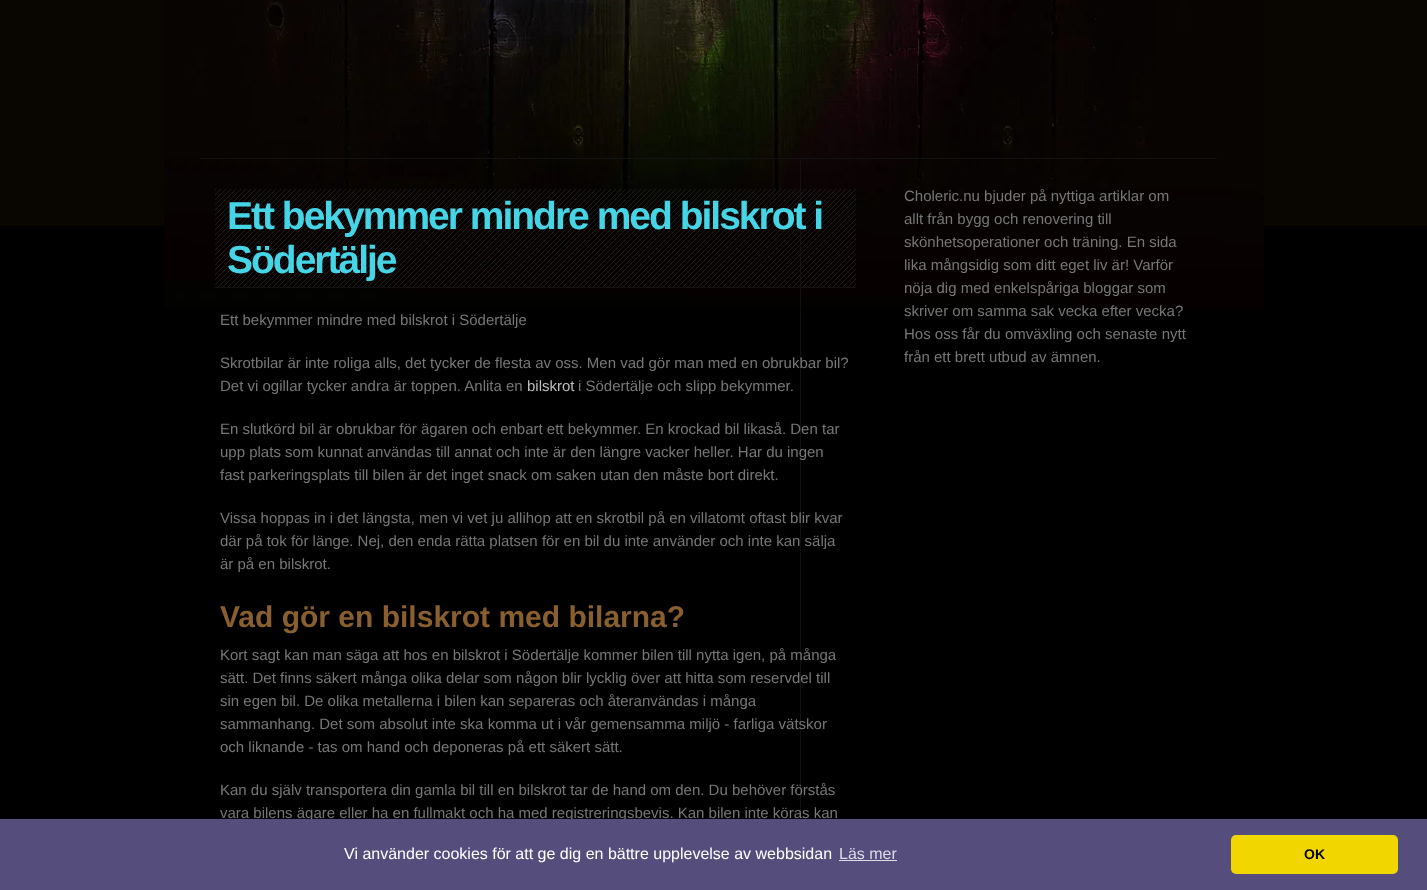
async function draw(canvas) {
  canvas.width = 1427
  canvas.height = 890
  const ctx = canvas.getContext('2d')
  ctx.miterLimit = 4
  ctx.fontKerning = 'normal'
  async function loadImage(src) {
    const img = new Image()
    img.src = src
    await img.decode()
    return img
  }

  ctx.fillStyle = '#010000'
  ctx.fillRect(0, 0, 1427, 890)
  ctx.fillStyle = '#090500'
  ctx.fillRect(0, 0, 1427, 226)
  ctx.drawImage(await loadImage('image0.png'), 164, 0, 1100, 308)
  ctx.fillStyle = '#111'
  ctx.fillRect(800, 158, 1, 661)
  ctx.fillStyle = '#121212'
  ctx.fillRect(200, 158, 1017, 1)
  ctx.drawImage(await loadImage('image1.png'), 215, 189, 641, 98)
  ctx.fillRect(215, 287, 641, 1)
  ctx.letterSpacing = '-2px'
  ctx.font = 'bold 39px Liberation Sans'
  ctx.fillStyle = '#45d5e6'
  ctx.fillText('Ett bekymmer mindre med bilskrot i', 227, 229)
  ctx.fillText('Södertälje', 227, 273)
  ctx.letterSpacing = '0px'
  ctx.font = '15px Liberation Sans'
  ctx.fillStyle = '#777'
  ctx.fillText('Ett bekymmer mindre med bilskrot i Södertälje', 220, 325)
  ctx.fillText('Skrotbilar är inte roliga alls, det tycker de flesta av oss. Men vad gör man med en obrukbar bil?', 220, 368)
  ctx.fillText('Det vi ogillar tycker andra är toppen. Anlita en', 220, 391)
  ctx.fillStyle = '#bebebe'
  ctx.fillText('bilskrot', 527, 391)
  ctx.fillStyle = '#777'
  ctx.fillText('i Södertälje och slipp bekymmer.', 578, 391)
  ctx.fillText('En slutkörd bil är obrukbar för ägaren och enbart ett bekymmer. En krockad bil likaså. Den tar', 220, 434)
  ctx.fillText('upp plats som kunnat användas till annat och inte är den längre vacker heller. Har du ingen', 220, 457)
  ctx.fillText('fast parkeringsplats till bilen är det inget snack om saken utan den måste bort direkt.', 220, 480)
  ctx.fillText('Vissa hoppas in i det längsta, men vi vet ju allihop att en skrotbil på en villatomt oftast blir kvar', 220, 523)
  ctx.fillText('där på tok för länge. Nej, den enda rätta platsen för en bil du inte använder och inte kan sälja', 220, 546)
  ctx.fillText('är på en bilskrot.', 220, 569)
  ctx.font = 'bold 30px Liberation Sans'
  ctx.fillStyle = '#895f30'
  ctx.fillText('Vad gör en bilskrot med bilarna?', 220, 627)
  ctx.font = '15px Liberation Sans'
  ctx.fillStyle = '#777'
  ctx.fillText('Kort sagt kan man säga att hos en bilskrot i Södertälje kommer bilen till nytta igen, på många', 220, 660)
  ctx.fillText('sätt. Det finns säkert många olika delar som någon blir lycklig över att hitta som reservdel till', 220, 683)
  ctx.fillText('sin egen bil. De olika metallerna i bilen kan separeras och återanvändas i många', 220, 706)
  ctx.fillText('sammanhang. Det som absolut inte ska komma ut i vår gemensamma miljö - farliga vätskor', 220, 729)
  ctx.fillText('och liknande - tas om hand och deponeras på ett säkert sätt.', 220, 752)
  ctx.fillText('Kan du själv transportera din gamla bil till en bilskrot tar de hand om den. Du behöver förstås', 220, 795)
  ctx.fillText('vara bilens ägare eller ha en fullmakt och ha med registreringsbevis. Kan bilen inte köras kan', 220, 818)
  ctx.fillText('Choleric.nu bjuder på nyttiga artiklar om', 904, 201)
  ctx.fillText('allt från bygg och renovering till', 904, 224)
  ctx.fillText('skönhetsoperationer och träning. En sida', 904, 247)
  ctx.fillText('lika mångsidig som ditt eget liv är! Varför', 904, 270)
  ctx.fillText('nöja dig med enkelspåriga bloggar som', 904, 293)
  ctx.fillText('skriver om samma sak vecka efter vecka?', 904, 316)
  ctx.fillText('Hos oss får du omväxling och senaste nytt', 904, 339)
  ctx.fillText('från ett brett utbud av ämnen.', 904, 362)
  ctx.fillStyle = '#554d7c'
  ctx.fillRect(0, 819, 1427, 71)
  ctx.font = '16px Liberation Sans'
  ctx.fillStyle = '#fff'
  ctx.fillText('Vi använder cookies för att ge dig en bättre upplevelse av webbsidan', 344, 859)
  ctx.fillStyle = '#dddbe5'
  ctx.fillText('Läs mer', 839, 859)
  ctx.fillRect(839, 860, 58, 1)
  ctx.fillStyle = '#f1d600'
  ctx.beginPath()
  ctx.roundRect(1231, 835, 167, 39, 5)
  ctx.fill()
  ctx.font = 'bold 14px Liberation Sans'
  ctx.fillStyle = '#000'
  ctx.fillText('OK', 1304, 859)
}

draw(document.querySelector('canvas'))
